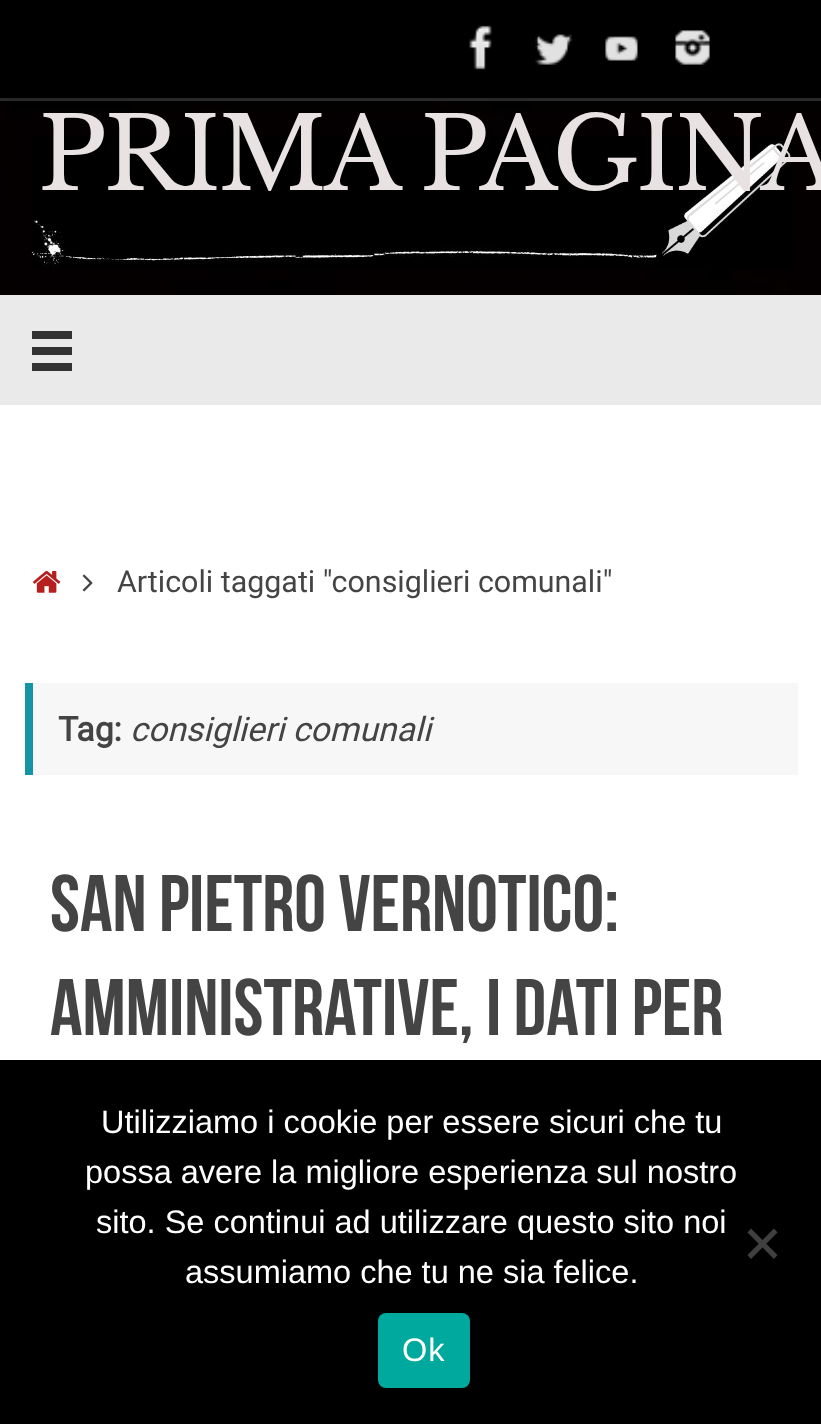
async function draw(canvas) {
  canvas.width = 821
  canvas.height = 1424
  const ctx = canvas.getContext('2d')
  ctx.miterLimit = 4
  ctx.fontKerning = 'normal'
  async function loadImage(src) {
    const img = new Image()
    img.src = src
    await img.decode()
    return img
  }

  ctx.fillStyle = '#fff'
  ctx.fillRect(0, 0, 821, 1424)
  ctx.drawImage(await loadImage('image0.png'), 0, 101, 821, 194)
  ctx.fillStyle = '#000'
  ctx.filter = 'blur(4px)'
  ctx.beginPath()
  ctx.rect(8, 0, 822, 100)
  ctx.fill()
  ctx.filter = 'none'
  ctx.fillRect(0, 0, 821, 98)
  ctx.fillStyle = '#282828'
  ctx.fillRect(0, 98, 821, 3)
  ctx.drawImage(await loadImage('image1.png'), 469, 25, 23, 45)
  ctx.drawImage(await loadImage('image2.png'), 535, 34, 37, 31)
  ctx.drawImage(await loadImage('image3.png'), 605, 36, 33, 25)
  ctx.drawImage(await loadImage('image4.png'), 675, 30, 35, 35)
  ctx.drawImage(await loadImage('image5.png'), 30, 136, 763, 134)
  ctx.letterSpacing = '-3px'
  ctx.font = '100px Libre Baskerville'
  ctx.fillStyle = '#e9e2e3'
  ctx.fillText('PRIMA PAGINA', 38, 190)
  ctx.fillStyle = '#eaeaea'
  ctx.fillRect(0, 295, 821, 110)
  ctx.fillStyle = '#333'
  ctx.beginPath()
  ctx.moveTo(32, 331)
  ctx.lineTo(32, 339)
  ctx.lineTo(72, 339)
  ctx.lineTo(72, 331)
  ctx.closePath()
  ctx.moveTo(32, 347)
  ctx.lineTo(32, 355)
  ctx.lineTo(72, 355)
  ctx.lineTo(72, 347)
  ctx.closePath()
  ctx.moveTo(32, 363)
  ctx.lineTo(32, 371)
  ctx.lineTo(72, 371)
  ctx.lineTo(72, 363)
  ctx.closePath()
  ctx.fill()
  ctx.drawImage(await loadImage('image6.png'), 33, 571, 28, 22)
  ctx.drawImage(await loadImage('image7.png'), 82, 574, 11, 18)
  ctx.letterSpacing = '0px'
  ctx.font = '30.4px Roboto'
  ctx.fillStyle = '#444'
  ctx.fillText('Articoli taggati "consiglieri comunali"', 117, 592)
  ctx.fillStyle = '#f7f7f7'
  ctx.fillRect(33, 683, 765, 92)
  ctx.fillStyle = '#1693a5'
  ctx.fillRect(25, 683, 8, 92)
  ctx.font = 'bold 33.75px Roboto'
  ctx.fillStyle = '#444'
  ctx.fillText('Tag:', 58, 741)
  ctx.font = 'italic 33.75px Roboto'
  ctx.fillText('consiglieri comunali', 130, 741)
  ctx.font = '80px Bebas Neue'
  ctx.fillText('San Pietro Vernotico:', 50, 931)
  ctx.fillText('amministrative, i dati per', 50, 1035)
  ctx.fillStyle = '#000'
  ctx.fillRect(0, 1060, 821, 364)
  ctx.font = '32.5px Liberation Sans'
  ctx.fillStyle = '#fff'
  ctx.fillText('Utilizziamo i cookie per essere sicuri che tu', 101, 1133)
  ctx.fillText('possa avere la migliore esperienza sul nostro', 85, 1183)
  ctx.fillText('sito. Se continui ad utilizzare questo sito noi', 96, 1233)
  ctx.fillText('assumiamo che tu ne sia felice.', 185, 1283)
  ctx.fillStyle = '#404040'
  ctx.beginPath()
  ctx.moveTo(774, 1228.5)
  ctx.lineTo(777.5, 1232.5)
  ctx.lineTo(751, 1259)
  ctx.lineTo(747.5, 1255)
  ctx.closePath()
  ctx.fill()
  ctx.beginPath()
  ctx.moveTo(747.5, 1232.5)
  ctx.lineTo(751, 1228.5)
  ctx.lineTo(777.5, 1255)
  ctx.lineTo(774, 1259)
  ctx.closePath()
  ctx.fill()
  ctx.fillStyle = '#00a99d'
  ctx.beginPath()
  ctx.roundRect(378, 1313, 92, 75, 8)
  ctx.fill()
  ctx.letterSpacing = '1px'
  ctx.fillStyle = '#fff'
  ctx.fillText('Ok', 402, 1361)
}

draw(document.querySelector('canvas'))
